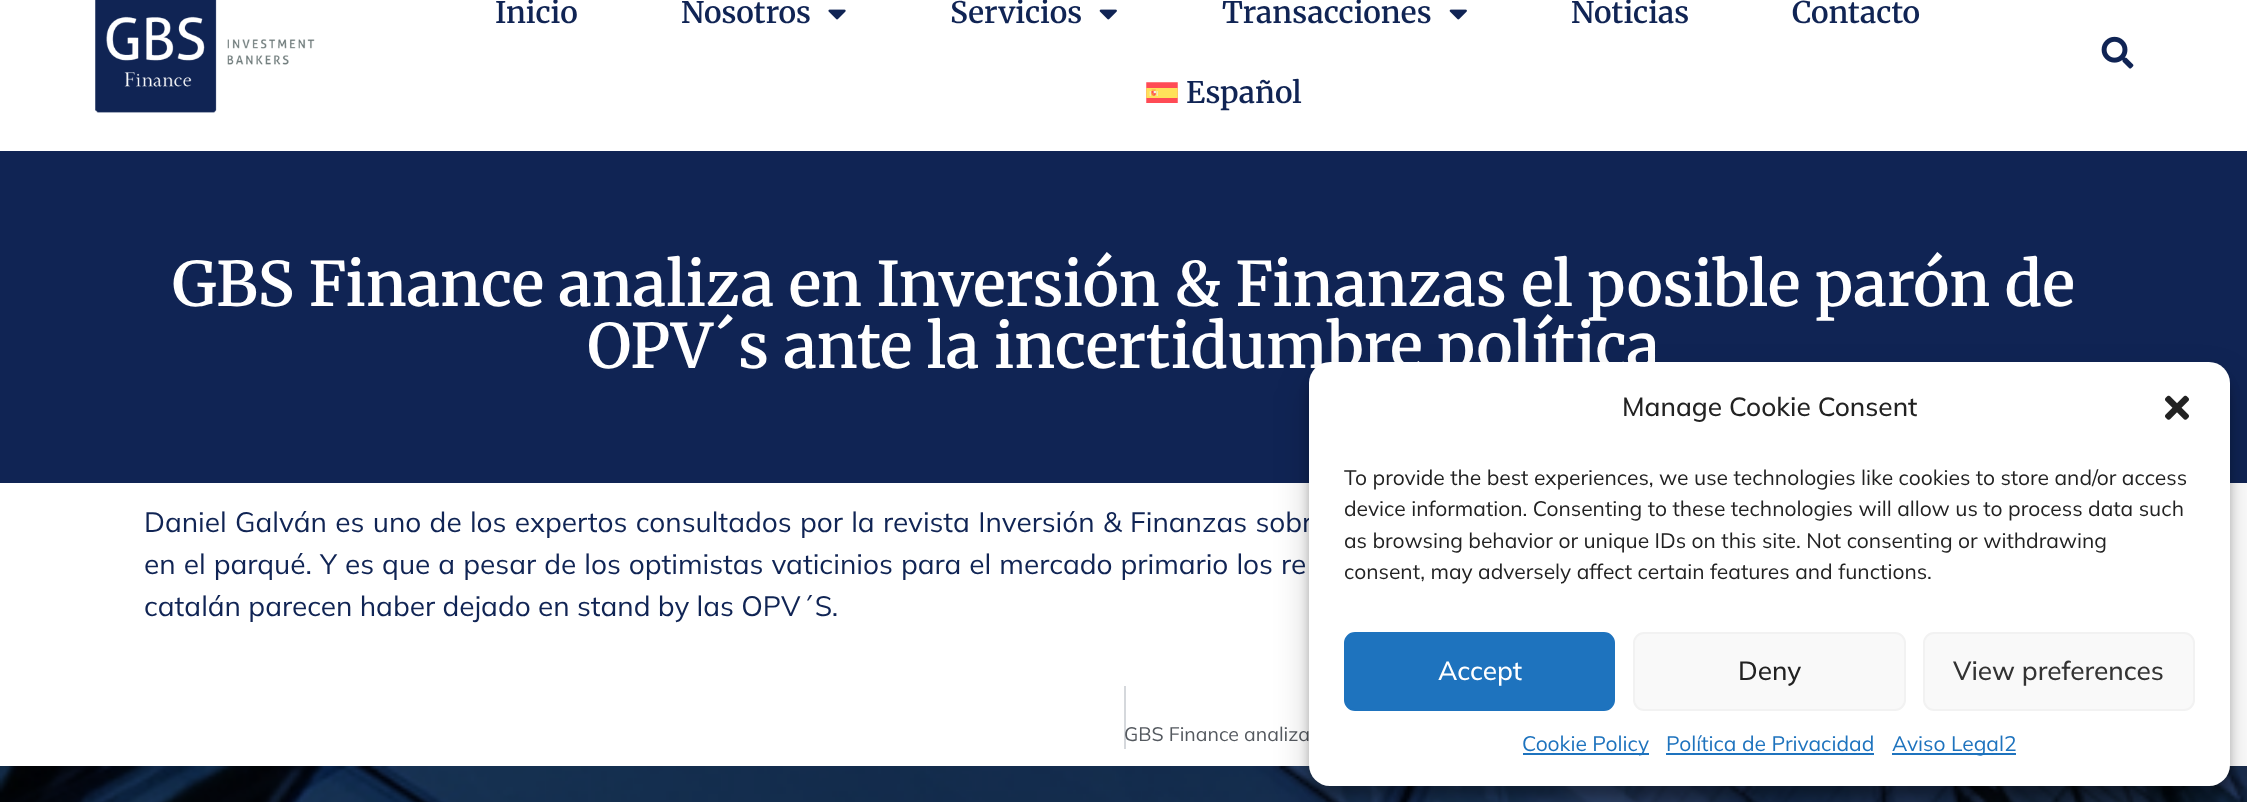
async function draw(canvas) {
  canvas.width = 2247
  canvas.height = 802
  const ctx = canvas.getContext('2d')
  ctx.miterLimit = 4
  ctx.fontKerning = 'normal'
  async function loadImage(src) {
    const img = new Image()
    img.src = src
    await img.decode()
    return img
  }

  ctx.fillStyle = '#fff'
  ctx.fillRect(0, 0, 2247, 802)
  ctx.drawImage(await loadImage('image0.png'), 95, 0, 220, 113)
  ctx.font = '600 29.75px Merriweather'
  ctx.fillStyle = '#102454'
  ctx.fillText('Inicio', 495, 23)
  ctx.fillText('Nosotros', 681, 23)
  ctx.drawImage(await loadImage('image1.png'), 828, 9, 18, 11)
  ctx.fillText('Servicios', 950, 23)
  ctx.drawImage(await loadImage('image2.png'), 1099, 9, 18, 11)
  ctx.fillText('Transacciones', 1222, 23)
  ctx.drawImage(await loadImage('image2.png'), 1449, 9, 18, 11)
  ctx.fillText('Noticias', 1571, 23)
  ctx.fillText('Contacto', 1792, 23)
  ctx.drawImage(await loadImage('image3.png'), 1146, 82, 32, 21)
  ctx.fillText('Español', 1186, 103)
  ctx.drawImage(await loadImage('image4.png'), 2101, 36, 33, 33)
  ctx.fillRect(0, 151, 2247, 332)
  ctx.font = '600 61.25px Merriweather'
  ctx.fillStyle = '#fff'
  ctx.fillText('GBS Finance analiza en Inversión & Finanzas el posible parón de', 172, 306)
  ctx.fillText('OPV´s ante la incertidumbre política', 587, 368)
  ctx.wordSpacing = '1px'
  ctx.font = '28px Mulish'
  ctx.fillStyle = '#102454'
  ctx.fillText('Daniel Galván es uno de los expertos consultados por la revista Inversión & Finanzas sobr', 144, 532)
  ctx.wordSpacing = '0.75px'
  ctx.fillText('en el parqué. Y es que a pesar de los optimistas vaticinios para el mercado primario los re', 144, 574)
  ctx.wordSpacing = '0px'
  ctx.fillText('catalán parecen haber dejado en stand by las OPV´S.', 144, 616)
  ctx.fillStyle = '#d5d8dc'
  ctx.fillRect(1124, 686, 2, 63)
  ctx.font = '19.5px Mulish'
  ctx.fillStyle = '#54595f'
  ctx.fillText('GBS Finance analiza', 1124, 741)
  ctx.drawImage(await loadImage('image6.png'), 0, 766, 2247, 36)
  ctx.fillStyle = '#0000003b'
  ctx.filter = 'blur(5px)'
  ctx.beginPath()
  ctx.roundRect(1309, 373, 921, 423, 21)
  ctx.fill()
  ctx.filter = 'none'
  ctx.fillStyle = '#00000030'
  ctx.filter = 'blur(17.5px)'
  ctx.beginPath()
  ctx.roundRect(1309, 380, 921, 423, 21)
  ctx.fill()
  ctx.filter = 'none'
  ctx.fillStyle = '#fff'
  ctx.beginPath()
  ctx.roundRect(1309, 362, 921, 424, 21)
  ctx.fill()
  ctx.font = '500 26.25px Mulish'
  ctx.fillStyle = '#222'
  ctx.fillText('Manage Cookie Consent', 1622, 416)
  ctx.drawImage(await loadImage('image5.png'), 2165, 395, 24, 25)
  ctx.font = '21px Mulish'
  ctx.fillText('To provide the best experiences, we use technologies like cookies to store and/or access', 1344, 485)
  ctx.fillText('device information. Consenting to these technologies will allow us to process data such', 1344, 516)
  ctx.fillText('as browsing behavior or unique IDs on this site. Not consenting or withdrawing', 1344, 548)
  ctx.fillText('consent, may adversely affect certain features and functions.', 1344, 579)
  ctx.fillStyle = '#1e73be'
  ctx.beginPath()
  ctx.roundRect(1345, 633, 269, 77, 10)
  ctx.fill()
  ctx.strokeStyle = '#1e73be'
  ctx.lineWidth = 2
  ctx.stroke()
  ctx.font = '500 26.25px Mulish'
  ctx.fillStyle = '#fff'
  ctx.fillText('Accept', 1438, 680)
  ctx.fillStyle = '#f9f9f9'
  ctx.beginPath()
  ctx.roundRect(1634, 633, 271, 77, 10)
  ctx.fill()
  ctx.strokeStyle = '#f2f2f2'
  ctx.stroke()
  ctx.fillStyle = '#222'
  ctx.fillText('Deny', 1738, 680)
  ctx.fillStyle = '#f9f9f9'
  ctx.beginPath()
  ctx.roundRect(1924, 633, 270, 77, 10)
  ctx.fill()
  ctx.stroke()
  ctx.fillStyle = '#333'
  ctx.fillText('View preferences', 1953, 680)
  ctx.fillStyle = '#1e73be'
  ctx.fillRect(1523, 753, 126, 2)
  ctx.font = '21px Mulish'
  ctx.fillText('Cookie Policy', 1522, 751)
  ctx.fillText('Política de Privacidad', 1666, 751)
  ctx.fillRect(1666, 753, 208, 2)
  ctx.fillRect(1892, 753, 124, 2)
  ctx.fillText('Aviso Legal2', 1892, 751)
}

draw(document.querySelector('canvas'))
